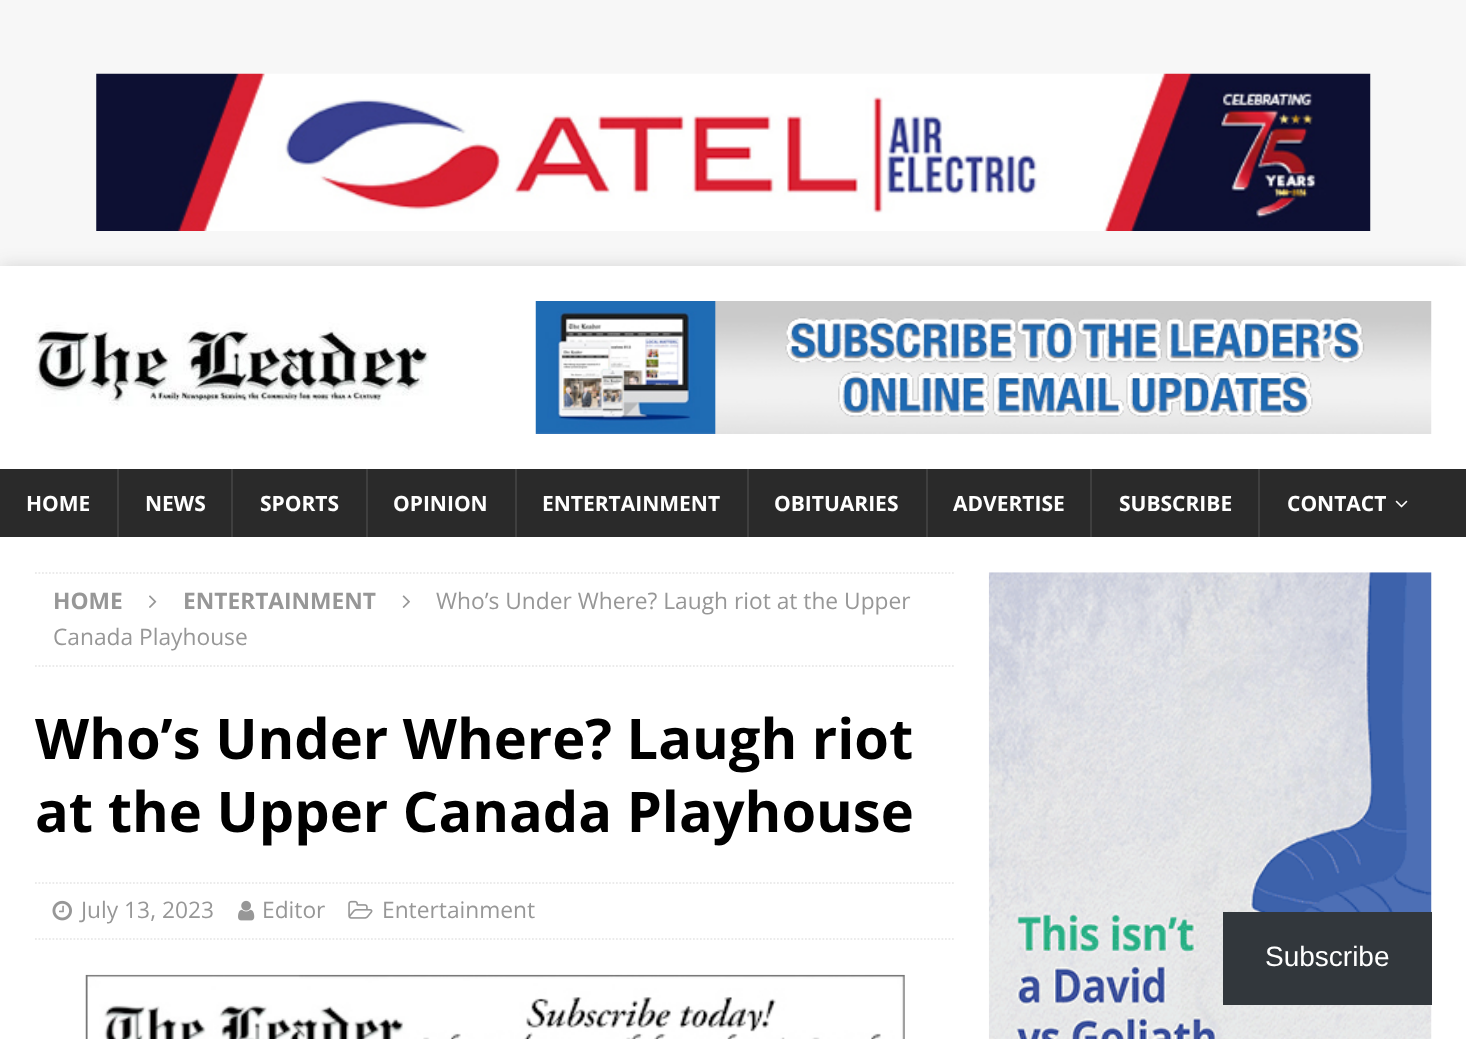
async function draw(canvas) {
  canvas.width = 1466
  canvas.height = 1039
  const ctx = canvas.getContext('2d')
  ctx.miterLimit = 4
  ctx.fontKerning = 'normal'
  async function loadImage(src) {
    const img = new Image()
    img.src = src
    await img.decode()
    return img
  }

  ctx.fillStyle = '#f7f7f7'
  ctx.fillRect(0, 0, 1466, 1039)
  ctx.drawImage(await loadImage('image0.png'), 96, 73, 1275, 158)
  ctx.fillStyle = '#3232322b'
  ctx.filter = 'blur(9px)'
  ctx.beginPath()
  ctx.rect(0, 266, 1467, 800)
  ctx.fill()
  ctx.filter = 'none'
  ctx.fillStyle = '#fff'
  ctx.fillRect(0, 266, 1466, 203)
  ctx.drawImage(await loadImage('image1.png'), 35, 322, 394, 85)
  ctx.drawImage(await loadImage('image2.png'), 535, 301, 897, 133)
  ctx.fillStyle = '#2a2a2a'
  ctx.fillRect(0, 469, 1466, 68)
  ctx.font = 'bold 21px Open Sans'
  ctx.fillStyle = '#fff'
  ctx.fillText('HOME', 26, 511)
  ctx.fillStyle = '#3f3f3f'
  ctx.fillRect(117, 469, 2, 68)
  ctx.fillStyle = '#fff'
  ctx.fillText('NEWS', 145, 511)
  ctx.fillStyle = '#3f3f3f'
  ctx.fillRect(231, 469, 2, 68)
  ctx.fillStyle = '#fff'
  ctx.fillText('SPORTS', 260, 511)
  ctx.fillStyle = '#3f3f3f'
  ctx.fillRect(366, 469, 2, 68)
  ctx.fillStyle = '#fff'
  ctx.fillText('OPINION', 393, 511)
  ctx.fillStyle = '#3f3f3f'
  ctx.fillRect(515, 469, 2, 68)
  ctx.fillStyle = '#fff'
  ctx.fillText('ENTERTAINMENT', 542, 511)
  ctx.fillStyle = '#3f3f3f'
  ctx.fillRect(747, 469, 2, 68)
  ctx.fillStyle = '#fff'
  ctx.fillText('OBITUARIES', 774, 511)
  ctx.fillStyle = '#3f3f3f'
  ctx.fillRect(926, 469, 2, 68)
  ctx.fillStyle = '#fff'
  ctx.fillText('ADVERTISE', 953, 511)
  ctx.fillStyle = '#3f3f3f'
  ctx.fillRect(1090, 469, 2, 68)
  ctx.fillStyle = '#fff'
  ctx.fillText('SUBSCRIBE', 1119, 511)
  ctx.fillStyle = '#3f3f3f'
  ctx.fillRect(1258, 469, 2, 68)
  ctx.fillStyle = '#fff'
  ctx.fillText('CONTACT', 1287, 511)
  ctx.drawImage(await loadImage('image3.png'), 1395, 500, 13, 8)
  ctx.fillRect(0, 537, 1466, 502)
  ctx.beginPath()
  ctx.moveTo(35, 573)
  ctx.lineTo(954, 573)
  ctx.strokeStyle = '#ebebeb'
  ctx.lineWidth = 1.8
  ctx.setLineDash([1.75, 1.75])
  ctx.stroke()
  ctx.beginPath()
  ctx.moveTo(35, 666)
  ctx.lineTo(954, 666)
  ctx.stroke()
  ctx.font = 'bold 22.75px Open Sans'
  ctx.fillStyle = '#979797'
  ctx.fillText('HOME', 53, 609)
  ctx.drawImage(await loadImage('image4.png'), 149, 595, 8, 13)
  ctx.fillText('ENTERTAINMENT', 183, 609)
  ctx.drawImage(await loadImage('image5.png'), 402, 595, 8, 13)
  ctx.font = '22.75px Open Sans'
  ctx.fillText('Who’s Under Where? Laugh riot at the Upper', 436, 609)
  ctx.fillText('Canada Playhouse', 53, 645)
  ctx.font = 'bold 56px Open Sans'
  ctx.fillStyle = '#000'
  ctx.fillText('Who’s Under Where? Laugh riot', 35, 759)
  ctx.fillText('at the Upper Canada Playhouse', 35, 832)
  ctx.beginPath()
  ctx.moveTo(35, 883)
  ctx.lineTo(954, 883)
  ctx.stroke()
  ctx.beginPath()
  ctx.moveTo(35, 939)
  ctx.lineTo(954, 939)
  ctx.stroke()
  ctx.drawImage(await loadImage('image6.png'), 52, 900, 20, 21)
  ctx.font = '22.75px Open Sans'
  ctx.fillStyle = '#979797'
  ctx.fillText('July 13, 2023', 81, 918)
  ctx.drawImage(await loadImage('image7.png'), 238, 900, 17, 21)
  ctx.fillText('Editor', 262, 918)
  ctx.drawImage(await loadImage('image8.png'), 348, 900, 25, 19)
  ctx.fillText('Entertainment', 382, 918)
  ctx.drawImage(await loadImage('image9.png'), 85, 974, 820, 65)
  ctx.drawImage(await loadImage('image10.png'), 988, 572, 444, 467)
  ctx.fillStyle = '#32373c'
  ctx.fillRect(1223, 912, 209, 93)
  ctx.font = '28px Liberation Sans'
  ctx.fillStyle = '#fff'
  ctx.fillText('Subscribe', 1265, 966)
}

draw(document.querySelector('canvas'))
